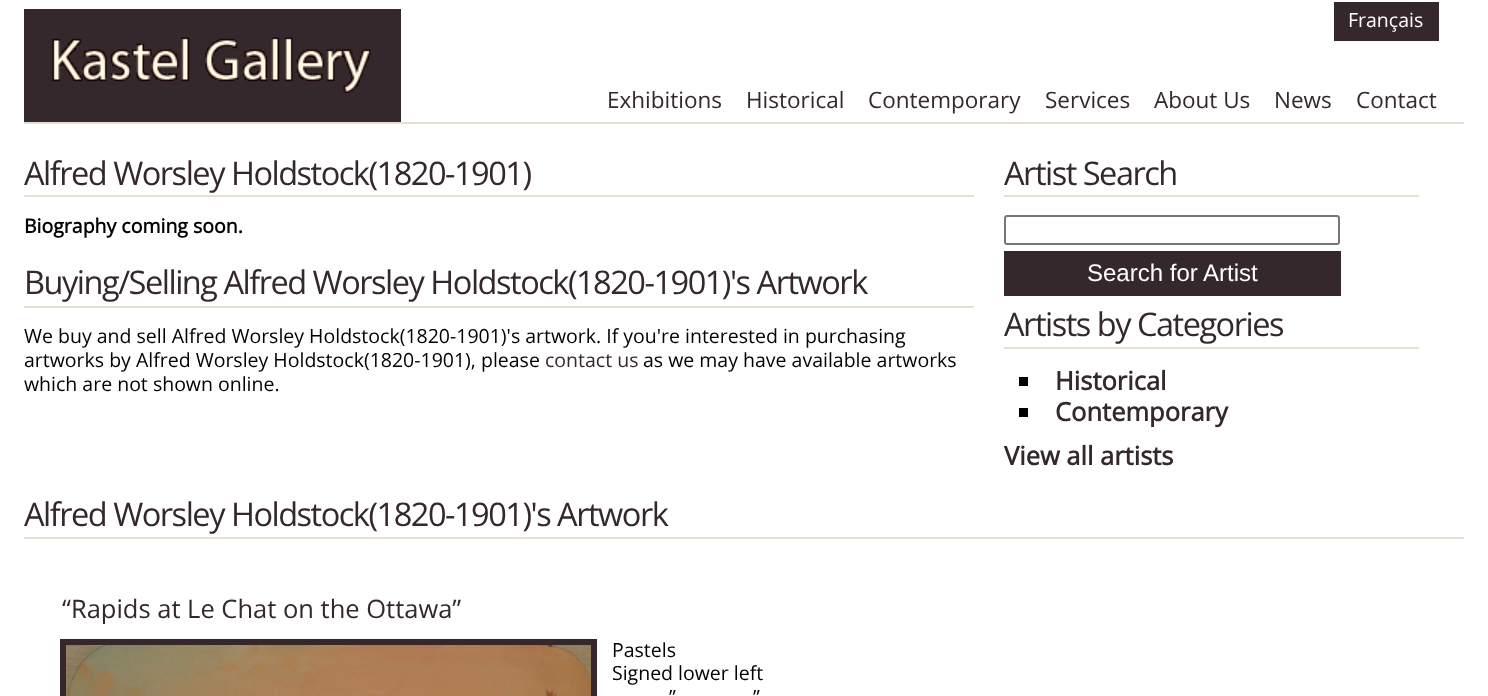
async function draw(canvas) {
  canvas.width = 1488
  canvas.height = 696
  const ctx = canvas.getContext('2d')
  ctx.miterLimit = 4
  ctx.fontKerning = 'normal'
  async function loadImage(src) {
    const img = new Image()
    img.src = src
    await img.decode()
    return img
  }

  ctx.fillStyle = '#fff'
  ctx.fillRect(0, 0, 1488, 696)
  ctx.fillStyle = '#e7e0cc'
  ctx.fillRect(24, 122, 1440, 2)
  ctx.fillStyle = '#34282c'
  ctx.fillRect(24, 9, 377, 113)
  ctx.drawImage(await loadImage('image0.png'), 52, 37, 319, 56)
  ctx.fillRect(1334, 2, 105, 39)
  ctx.font = '19.5px Open Sans'
  ctx.fillStyle = '#fff'
  ctx.fillText('Français', 1348, 27)
  ctx.font = '22.5px Open Sans'
  ctx.fillStyle = '#34282c'
  ctx.fillText('Exhibitions', 607, 108)
  ctx.fillText('Historical', 746, 108)
  ctx.fillText('Contemporary', 868, 108)
  ctx.fillText('Services', 1045, 108)
  ctx.fillText('About Us', 1154, 108)
  ctx.fillText('News', 1274, 108)
  ctx.fillText('Contact', 1356, 108)
  ctx.fillStyle = '#e7e0cc'
  ctx.fillRect(24, 195, 950, 2)
  ctx.letterSpacing = '-1.5px'
  ctx.font = '32.55px Open Sans'
  ctx.fillStyle = '#34282c'
  ctx.fillText('Alfred Worsley Holdstock(1820-1901)', 24, 185)
  ctx.letterSpacing = '0px'
  ctx.font = 'bold 19.5px Open Sans'
  ctx.fillStyle = '#000'
  ctx.fillText('Biography coming soon.', 24, 233)
  ctx.fillStyle = '#e7e0cc'
  ctx.fillRect(24, 306, 950, 2)
  ctx.letterSpacing = '-1.5px'
  ctx.font = '32.55px Open Sans'
  ctx.fillStyle = '#34282c'
  ctx.fillText('Buying/Selling Alfred Worsley Holdstock(1820-1901)\'s Artwork', 24, 294)
  ctx.letterSpacing = '0px'
  ctx.font = '19.5px Open Sans'
  ctx.fillStyle = '#000'
  ctx.fillText('We buy and sell Alfred Worsley Holdstock(1820-1901)\'s artwork. If you\'re interested in purchasing', 24, 343)
  ctx.fillText('artworks by Alfred Worsley Holdstock(1820-1901), please', 24, 367)
  ctx.fillStyle = '#34282c'
  ctx.fillText('contact us', 545, 367)
  ctx.fillStyle = '#000'
  ctx.fillText('as we may have available artworks', 643, 367)
  ctx.fillText('which are not shown online.', 24, 391)
  ctx.fillStyle = '#e7e0cc'
  ctx.fillRect(1004, 195, 415, 2)
  ctx.letterSpacing = '-1.5px'
  ctx.font = '32.55px Open Sans'
  ctx.fillStyle = '#34282c'
  ctx.fillText('Artist Search', 1004, 185)
  ctx.beginPath()
  ctx.roundRect(1005, 216, 334, 28, 2)
  ctx.strokeStyle = '#767676'
  ctx.lineWidth = 2
  ctx.stroke()
  ctx.fillRect(1004, 251, 337, 45)
  ctx.letterSpacing = '0px'
  ctx.font = '24px Liberation Sans'
  ctx.fillStyle = '#fff'
  ctx.fillText('Search for Artist', 1087, 281)
  ctx.fillStyle = '#e7e0cc'
  ctx.fillRect(1004, 347, 415, 2)
  ctx.letterSpacing = '-1.5px'
  ctx.font = '32.55px Open Sans'
  ctx.fillStyle = '#34282c'
  ctx.fillText('Artists by Categories', 1004, 336)
  ctx.fillStyle = '#000'
  ctx.fillRect(1019, 377, 9, 9)
  ctx.letterSpacing = '0px'
  ctx.font = 'bold 25.5px Open Sans'
  ctx.fillStyle = '#34282c'
  ctx.fillText('Historical', 1055, 390)
  ctx.fillStyle = '#000'
  ctx.fillRect(1019, 408, 9, 9)
  ctx.fillStyle = '#34282c'
  ctx.fillText('Contemporary', 1055, 421)
  ctx.fillText('View all artists', 1004, 465)
  ctx.fillStyle = '#e7e0cc'
  ctx.fillRect(24, 537, 1440, 2)
  ctx.letterSpacing = '-1.5px'
  ctx.font = '32.55px Open Sans'
  ctx.fillStyle = '#34282c'
  ctx.fillText('Alfred Worsley Holdstock(1820-1901)\'s Artwork', 24, 526)
  ctx.letterSpacing = '0px'
  ctx.font = '25.5px Open Sans'
  ctx.fillText('“Rapids at Le Chat on the Ottawa”', 62, 618)
  ctx.strokeStyle = '#34282c'
  ctx.lineWidth = 6
  ctx.strokeRect(63, 642, 531, 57)
  ctx.drawImage(await loadImage('image1.png'), 66, 645, 525, 51)
  ctx.font = '19.5px Open Sans'
  ctx.fillStyle = '#000'
  ctx.fillText('Pastels', 612, 657)
  ctx.fillText('Signed lower left', 612, 680)
  ctx.fillText('”', 669, 704)
  ctx.fillText('”', 753, 704)
}

draw(document.querySelector('canvas'))
